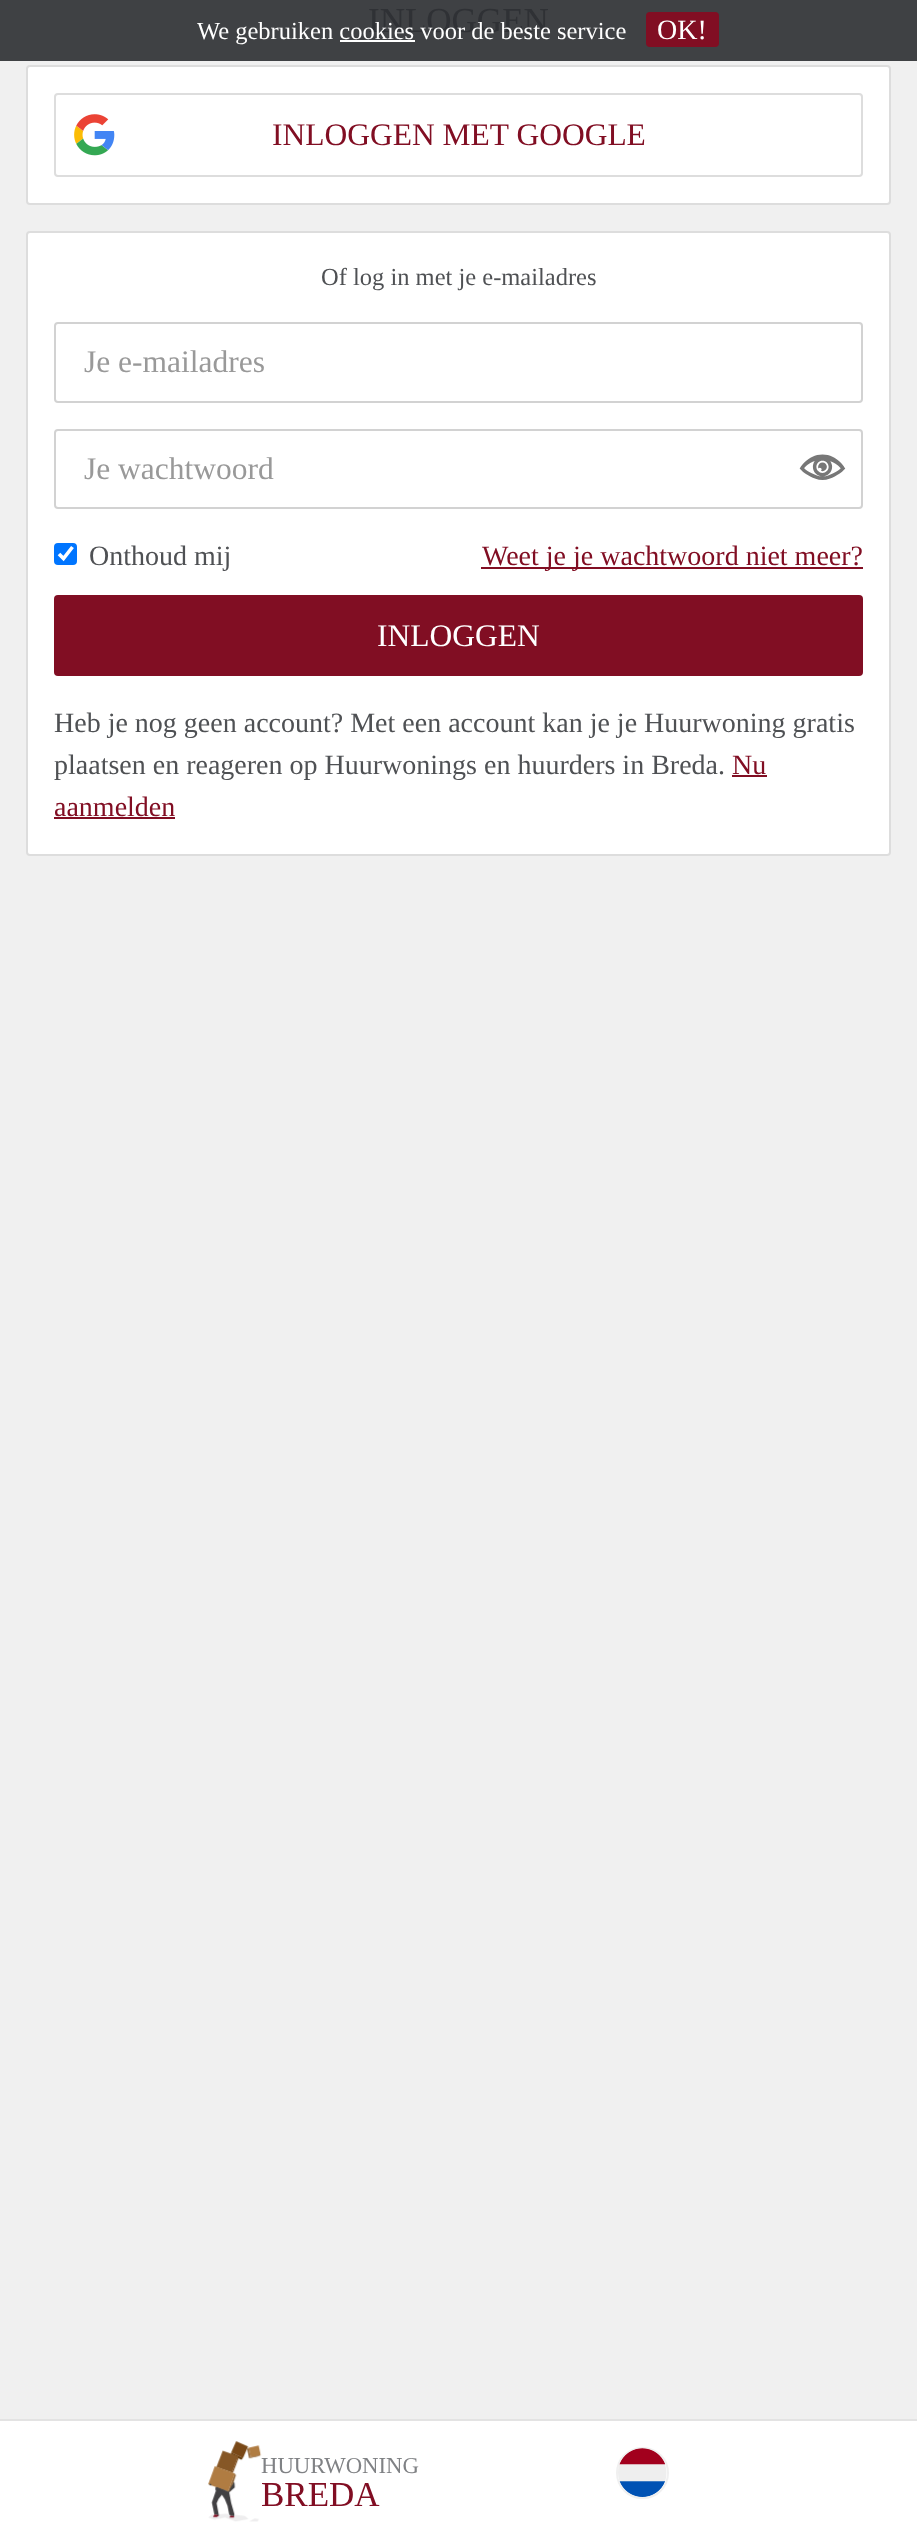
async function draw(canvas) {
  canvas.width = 917
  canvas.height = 2541
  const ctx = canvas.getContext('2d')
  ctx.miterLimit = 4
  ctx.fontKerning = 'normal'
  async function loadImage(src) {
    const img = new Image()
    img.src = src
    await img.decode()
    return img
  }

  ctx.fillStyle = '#f0f0f0'
  ctx.fillRect(0, 0, 917, 2541)
  ctx.fillStyle = '#3f4144'
  ctx.fillRect(0, 0, 917, 61)
  ctx.font = '35px Liberation Serif'
  ctx.fillStyle = '#2f3135'
  ctx.fillText('INLOGGEN', 368, 32)
  ctx.fillStyle = '#fff'
  ctx.beginPath()
  ctx.roundRect(27, 66, 863, 138, 3)
  ctx.fill()
  ctx.strokeStyle = '#ddd'
  ctx.lineWidth = 2
  ctx.stroke()
  ctx.drawImage(await loadImage('image0.png'), 74, 114, 41, 42)
  ctx.beginPath()
  ctx.roundRect(55, 94, 807, 82, 3)
  ctx.stroke()
  ctx.font = '31.5px Liberation Serif'
  ctx.fillStyle = '#810e23'
  ctx.fillText('INLOGGEN MET GOOGLE', 272, 145)
  ctx.fillStyle = '#fff'
  ctx.beginPath()
  ctx.roundRect(27, 232, 863, 623, 3)
  ctx.fill()
  ctx.stroke()
  ctx.font = '24.5px Liberation Serif'
  ctx.fillStyle = '#4f5154'
  ctx.fillText('Of log in met je e-mailadres', 321, 285)
  ctx.beginPath()
  ctx.roundRect(55, 323, 807, 79, 3)
  ctx.strokeStyle = '#d2d2d2'
  ctx.stroke()
  ctx.font = '31.5px Liberation Serif'
  ctx.fillStyle = '#999'
  ctx.fillText('Je e-mailadres', 84, 372)
  ctx.beginPath()
  ctx.roundRect(55, 430, 807, 78, 3)
  ctx.stroke()
  ctx.fillText('Je wachtwoord', 84, 479)
  ctx.drawImage(await loadImage('image1.png'), 799, 454, 47, 26)
  ctx.fillStyle = '#0075ff'
  ctx.beginPath()
  ctx.roundRect(54, 543, 23, 22, 4)
  ctx.fill()
  ctx.beginPath()
  ctx.moveTo(59, 554)
  ctx.lineTo(63.5, 558.5)
  ctx.lineTo(72.5, 547)
  ctx.strokeStyle = '#fff'
  ctx.lineWidth = 3.6
  ctx.stroke()
  ctx.font = '28px Liberation Serif'
  ctx.fillStyle = '#4f5154'
  ctx.fillText('Onthoud mij', 89, 565)
  ctx.fillStyle = '#810e23'
  ctx.fillRect(481, 567, 382, 2)
  ctx.fillText('Weet je je wachtwoord niet meer?', 482, 565)
  ctx.beginPath()
  ctx.roundRect(54, 595, 809, 81, 4)
  ctx.fill()
  ctx.font = '31.5px Liberation Serif'
  ctx.fillStyle = '#fff'
  ctx.fillText('INLOGGEN', 377, 646)
  ctx.font = '28px Liberation Serif'
  ctx.fillStyle = '#4f5154'
  ctx.fillText('Heb je nog geen account? Met een account kan je je Huurwoning gratis', 54, 732)
  ctx.fillText('plaatsen en reageren op Huurwonings en huurders in Breda.', 54, 774)
  ctx.fillStyle = '#810e23'
  ctx.fillText('Nu', 732, 774)
  ctx.fillRect(732, 775, 35, 2)
  ctx.fillText('aanmelden', 54, 816)
  ctx.fillRect(54, 817, 121, 2)
  ctx.font = '24.5px Liberation Serif'
  ctx.fillStyle = '#fff'
  ctx.fillText('We gebruiken cookies voor de beste service', 197, 39)
  ctx.fillStyle = '#810e23'
  ctx.beginPath()
  ctx.roundRect(646, 12, 73, 35, 4)
  ctx.fill()
  ctx.font = '28px Liberation Serif'
  ctx.fillStyle = '#fff'
  ctx.fillText('OK!', 657, 39)
  ctx.fillRect(340, 40, 75, 2)
  ctx.fillRect(0, 2421, 917, 120)
  ctx.fillStyle = '#e3e3e3'
  ctx.fillRect(0, 2419, 917, 2)
  ctx.drawImage(await loadImage('image2.png'), 208, 2441, 54, 81)
  ctx.font = '22.75px Liberation Serif'
  ctx.fillStyle = '#808285'
  ctx.fillText('HUURWONING', 261, 2473)
  ctx.font = '35px Liberation Serif'
  ctx.fillStyle = '#810e23'
  ctx.fillText('BREDA', 261, 2506)
  ctx.beginPath()
  ctx.roundRect(617, 2448, 51, 50, 25)
  ctx.strokeStyle = '#f0f0f0'
  ctx.lineWidth = 2
  ctx.stroke()
  ctx.drawImage(await loadImage('image3.png'), 618, 2448, 49, 49)
}

draw(document.querySelector('canvas'))
